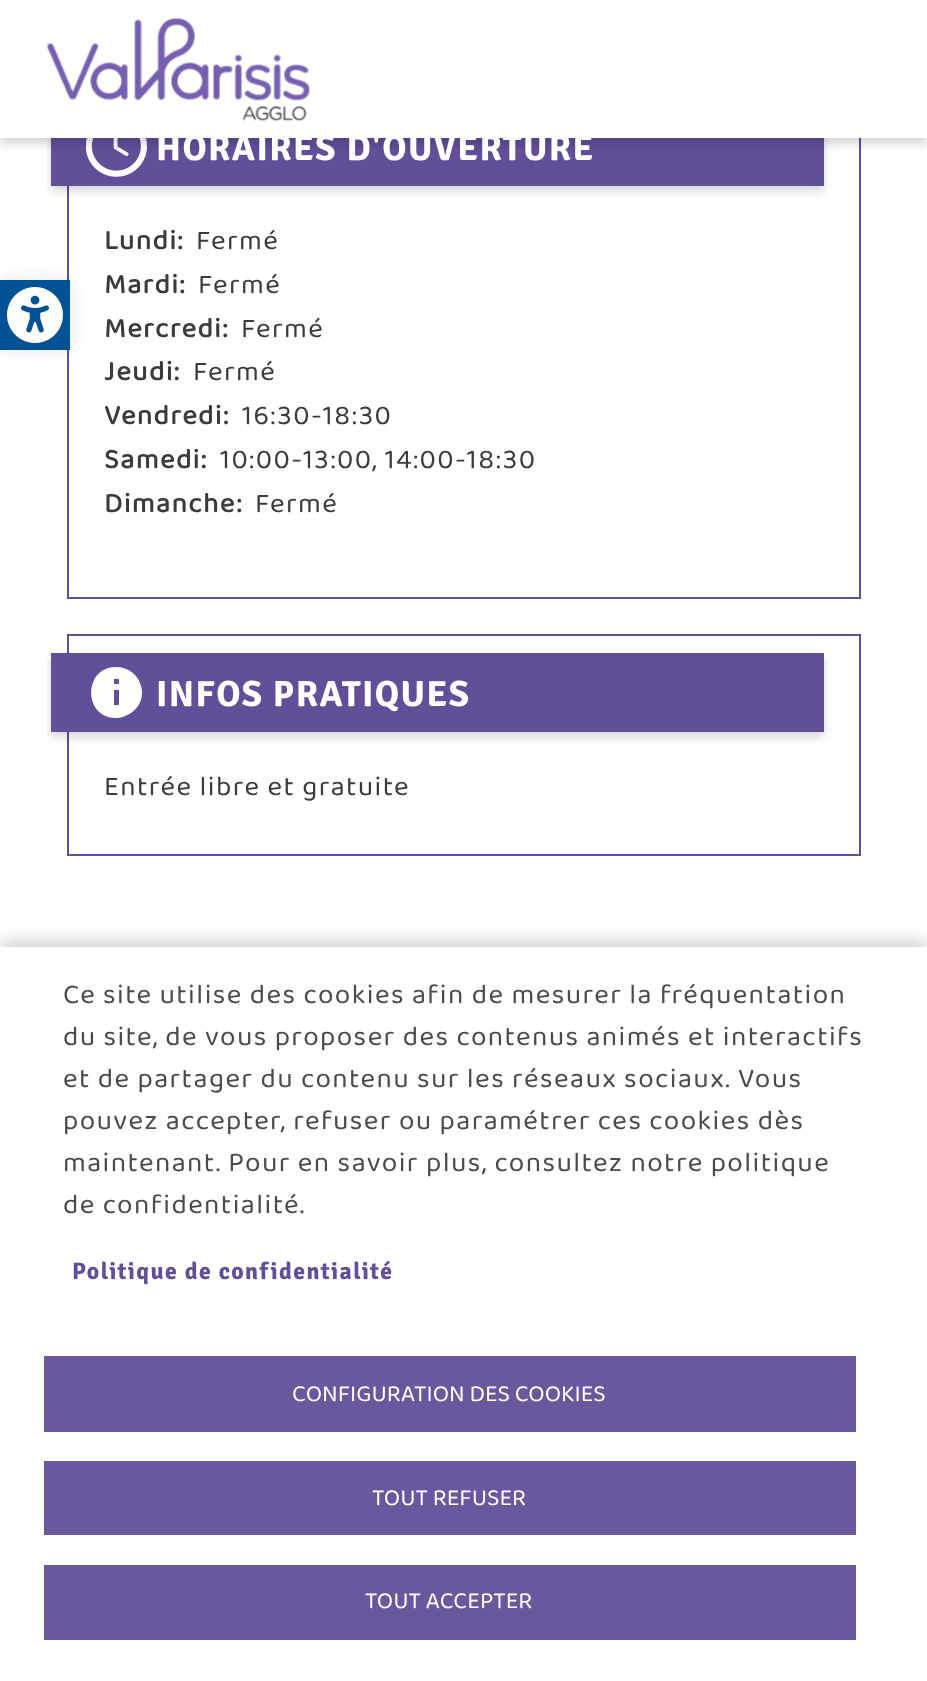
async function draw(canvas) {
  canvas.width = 927
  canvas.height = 1681
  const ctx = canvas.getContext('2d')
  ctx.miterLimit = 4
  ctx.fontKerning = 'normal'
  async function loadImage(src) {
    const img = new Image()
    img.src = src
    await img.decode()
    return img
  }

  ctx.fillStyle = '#fff'
  ctx.fillRect(0, 0, 927, 1681)
  ctx.strokeStyle = '#624f9a'
  ctx.lineWidth = 2
  ctx.strokeRect(68, 89, 792, 509)
  ctx.fillStyle = '#0000001a'
  ctx.filter = 'blur(9px)'
  ctx.beginPath()
  ctx.rect(0, 280, 70, 70)
  ctx.fill()
  ctx.filter = 'none'
  ctx.fillStyle = '#005295'
  ctx.fillRect(0, 280, 70, 70)
  ctx.drawImage(await loadImage('image0.png'), 7, 287, 56, 56)
  ctx.save()
  ctx.beginPath()
  ctx.rect(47, 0, 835, 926)
  ctx.clip()
  ctx.fillStyle = '#00000029'
  ctx.filter = 'blur(5px)'
  ctx.beginPath()
  ctx.rect(51, 112, 773, 79)
  ctx.fill()
  ctx.filter = 'none'
  ctx.restore()
  ctx.fillStyle = '#624f9a'
  ctx.fillRect(51, 138, 773, 48)
  ctx.drawImage(await loadImage('image2.png'), 86, 138, 61, 39)
  ctx.fillStyle = '#00000029'
  ctx.filter = 'blur(5px)'
  ctx.beginPath()
  ctx.rect(0, 5, 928, 139)
  ctx.fill()
  ctx.filter = 'none'
  ctx.fillStyle = '#fff'
  ctx.fillRect(0, 0, 927, 138)
  ctx.drawImage(await loadImage('image1.png'), 47, 17, 263, 104)
  ctx.letterSpacing = '1.4px'
  ctx.font = '300 36.4px Signika'
  ctx.fillText('HORAIRES D\'OUVERTURE', 156, 160)
  ctx.font = 'bold 28px "Baloo 2"'
  ctx.fillStyle = '#3b3b3b'
  ctx.fillText('Lundi:', 104, 249)
  ctx.font = '28px "Baloo 2"'
  ctx.fillText('Fermé', 196, 249)
  ctx.font = 'bold 28px "Baloo 2"'
  ctx.fillText('Mardi:', 104, 293)
  ctx.font = '28px "Baloo 2"'
  ctx.fillText('Fermé', 198, 293)
  ctx.font = 'bold 28px "Baloo 2"'
  ctx.fillText('Mercredi:', 104, 337)
  ctx.font = '28px "Baloo 2"'
  ctx.fillText('Fermé', 241, 337)
  ctx.font = 'bold 28px "Baloo 2"'
  ctx.fillText('Jeudi:', 104, 380)
  ctx.font = '28px "Baloo 2"'
  ctx.fillText('Fermé', 193, 380)
  ctx.font = 'bold 28px "Baloo 2"'
  ctx.fillText('Vendredi:', 104, 424)
  ctx.font = '28px "Baloo 2"'
  ctx.fillText('16:30-18:30', 242, 424)
  ctx.font = 'bold 28px "Baloo 2"'
  ctx.fillText('Samedi:', 104, 468)
  ctx.font = '28px "Baloo 2"'
  ctx.fillText('10:00-13:00, 14:00-18:30', 220, 468)
  ctx.font = 'bold 28px "Baloo 2"'
  ctx.fillText('Dimanche:', 104, 512)
  ctx.font = '28px "Baloo 2"'
  ctx.fillText('Fermé', 255, 512)
  ctx.strokeRect(68, 635, 792, 220)
  ctx.save()
  ctx.beginPath()
  ctx.rect(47, 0, 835, 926)
  ctx.clip()
  ctx.fillStyle = '#00000029'
  ctx.filter = 'blur(5px)'
  ctx.beginPath()
  ctx.rect(51, 658, 773, 79)
  ctx.fill()
  ctx.filter = 'none'
  ctx.restore()
  ctx.fillStyle = '#624f9a'
  ctx.fillRect(51, 653, 773, 79)
  ctx.fillStyle = '#fff'
  ctx.beginPath()
  ctx.moveTo(116, 667)
  ctx.bezierCurveTo(83, 667, 83, 718, 116, 718)
  ctx.bezierCurveTo(121, 718, 126, 716, 131, 713)
  ctx.bezierCurveTo(152, 699, 141, 667, 116, 667)
  ctx.closePath()
  ctx.moveTo(119, 705)
  ctx.lineTo(114, 705)
  ctx.lineTo(114, 690)
  ctx.lineTo(119, 690)
  ctx.closePath()
  ctx.moveTo(119, 684)
  ctx.lineTo(114, 684)
  ctx.lineTo(114, 679)
  ctx.lineTo(119, 679)
  ctx.closePath()
  ctx.fill()
  ctx.font = '300 36.4px Signika'
  ctx.fillText('INFOS PRATIQUES', 156, 706)
  ctx.font = '28px "Baloo 2"'
  ctx.fillStyle = '#3b3b3b'
  ctx.fillText('Entrée libre et gratuite', 104, 795)
  ctx.fillStyle = '#00000033'
  ctx.filter = 'blur(9px)'
  ctx.beginPath()
  ctx.rect(0, 942, 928, 735)
  ctx.fill()
  ctx.filter = 'none'
  ctx.fillStyle = '#fff'
  ctx.fillRect(0, 947, 927, 734)
  ctx.fillStyle = '#4b4b4b'
  ctx.fillText('Ce site utilise des cookies afin de mesurer la fréquentation', 63, 1003)
  ctx.fillText('du site, de vous proposer des contenus animés et interactifs', 63, 1045)
  ctx.fillText('et de partager du contenu sur les réseaux sociaux. Vous', 63, 1087)
  ctx.fillText('pouvez accepter, refuser ou paramétrer ces cookies dès', 63, 1129)
  ctx.fillText('maintenant. Pour en savoir plus, consultez notre politique', 63, 1171)
  ctx.fillText('de confidentialité.', 63, 1213)
  ctx.font = '300 23.75px Signika'
  ctx.fillStyle = '#624f9a'
  ctx.fillText('Politique de confidentialité', 72, 1279)
  ctx.fillStyle = '#6a589f'
  ctx.fillRect(44, 1356, 812, 76)
  ctx.letterSpacing = '0px'
  ctx.font = '23.75px "Baloo 2"'
  ctx.fillStyle = '#fff'
  ctx.fillText('CONFIGURATION DES COOKIES', 292, 1401)
  ctx.fillStyle = '#6a589f'
  ctx.fillRect(44, 1461, 812, 74)
  ctx.fillStyle = '#fff'
  ctx.fillText('TOUT REFUSER', 372, 1505)
  ctx.fillStyle = '#6a589f'
  ctx.fillRect(44, 1565, 812, 75)
  ctx.fillStyle = '#fff'
  ctx.fillText('TOUT ACCEPTER', 365, 1608)
}

draw(document.querySelector('canvas'))
